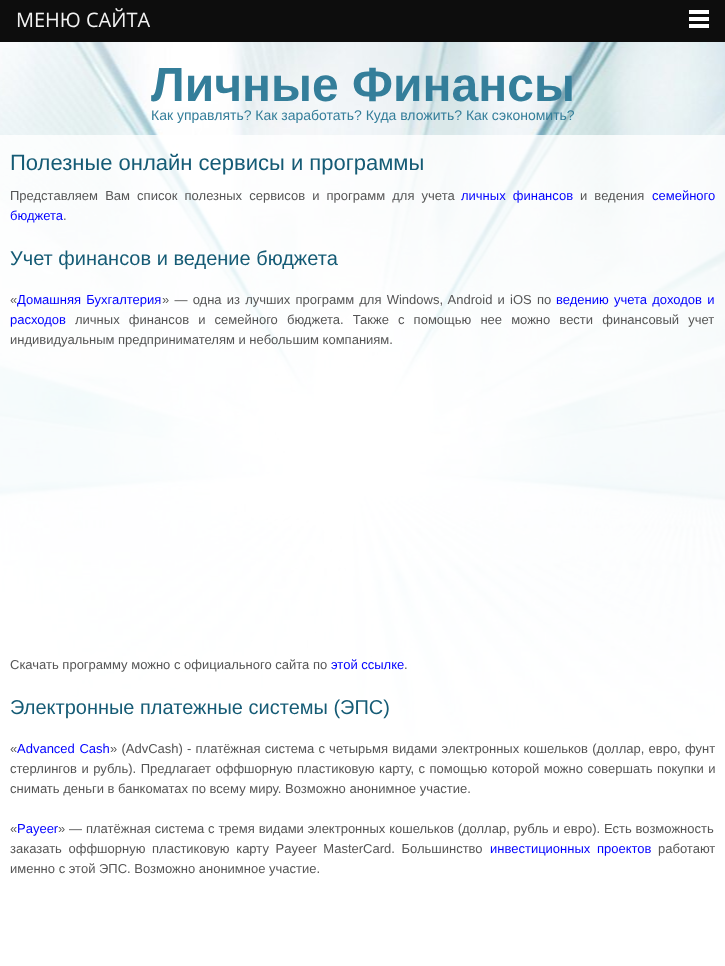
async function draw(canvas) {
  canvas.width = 725
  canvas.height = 966
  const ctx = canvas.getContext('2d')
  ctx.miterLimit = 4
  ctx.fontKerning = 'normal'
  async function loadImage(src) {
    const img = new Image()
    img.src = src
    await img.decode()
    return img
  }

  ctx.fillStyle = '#fff'
  ctx.fillRect(0, 0, 725, 966)
  ctx.drawImage(await loadImage('image0.png'), 0, 42, 725, 711)
  ctx.fillStyle = '#0d0d0d'
  ctx.fillRect(0, 0, 725, 42)
  ctx.font = '20px Open Sans'
  ctx.fillStyle = '#f2f2f2'
  ctx.fillText('МЕНЮ САЙТА', 16, 27)
  ctx.fillStyle = '#fff'
  ctx.fillRect(689, 10, 20, 4)
  ctx.fillRect(689, 17, 20, 4)
  ctx.fillRect(689, 24, 20, 4)
  ctx.font = 'bold 48px Liberation Sans'
  ctx.fillStyle = '#347e9a'
  ctx.fillText('Личные Финансы', 151, 101)
  ctx.font = '14px Liberation Sans'
  ctx.fillText('Как управлять? Как заработать? Куда вложить? Как сэкономить?', 151, 120)
  ctx.fillStyle = '#ffffffcc'
  ctx.fillRect(0, 135, 725, 618)
  ctx.font = '22px Liberation Sans'
  ctx.fillStyle = '#155b75'
  ctx.fillText('Полезные онлайн сервисы и программы', 10, 170)
  ctx.wordSpacing = '3.5px'
  ctx.font = '13px Liberation Sans'
  ctx.fillStyle = '#555'
  ctx.fillText('Представляем Вам список полезных сервисов и программ для учета', 10, 200)
  ctx.fillStyle = '#00f'
  ctx.fillText('личных финансов', 461, 200)
  ctx.fillStyle = '#555'
  ctx.fillText('и ведения', 580, 200)
  ctx.wordSpacing = '0px'
  ctx.fillStyle = '#00f'
  ctx.fillText('семейного', 652, 200)
  ctx.fillText('бюджета', 10, 220)
  ctx.fillStyle = '#555'
  ctx.fillText('.', 63, 220)
  ctx.font = '20px Liberation Sans'
  ctx.fillStyle = '#155b75'
  ctx.fillText('Учет финансов и ведение бюджета', 10, 265)
  ctx.font = '13px Liberation Sans'
  ctx.fillStyle = '#555'
  ctx.fillText('«', 10, 304)
  ctx.wordSpacing = '1.6px'
  ctx.fillStyle = '#00f'
  ctx.fillText('Домашняя Бухгалтерия', 17, 304)
  ctx.fillStyle = '#555'
  ctx.fillText('» — одна из лучших программ для Windows, Android и iOS по', 162, 304)
  ctx.fillStyle = '#00f'
  ctx.fillText('ведению учета доходов и', 556, 304)
  ctx.wordSpacing = '0px'
  ctx.fillText('расходов', 10, 324)
  ctx.wordSpacing = '5.5px'
  ctx.fillStyle = '#555'
  ctx.fillText('личных финансов и семейного бюджета. Также с помощью нее можно вести финансовый учет', 75, 324)
  ctx.wordSpacing = '0px'
  ctx.fillText('индивидуальным предпринимателям и небольшим компаниям.', 10, 344)
  ctx.fillText('Скачать программу можно с официального сайта по', 10, 669)
  ctx.fillStyle = '#00f'
  ctx.fillText('этой ссылке', 331, 669)
  ctx.fillStyle = '#555'
  ctx.fillText('.', 404, 669)
  ctx.font = '20px Liberation Sans'
  ctx.fillStyle = '#155b75'
  ctx.fillText('Электронные платежные системы (ЭПС)', 10, 714)
  ctx.font = '13px Liberation Sans'
  ctx.fillStyle = '#555'
  ctx.fillText('«', 10, 753)
  ctx.wordSpacing = '1px'
  ctx.fillStyle = '#00f'
  ctx.fillText('Advanced Cash', 17, 753)
  ctx.wordSpacing = '0.6px'
  ctx.fillStyle = '#555'
  ctx.fillText('» (AdvCash) - платёжная система с четырьмя видами электронных кошельков (доллар, евро, фунт', 110, 753)
  ctx.wordSpacing = '0.9px'
  ctx.fillText('стерлингов и рубль). Предлагает оффшорную пластиковую карту, с помощью которой можно совершать покупки и', 10, 773)
  ctx.wordSpacing = '0px'
  ctx.fillText('снимать деньги в банкоматах по всему миру. Возможно анонимное участие.', 10, 793)
  ctx.fillText('«', 10, 833)
  ctx.fillStyle = '#00f'
  ctx.fillText('Payeer', 17, 833)
  ctx.wordSpacing = '0.25px'
  ctx.fillStyle = '#555'
  ctx.fillText('» — платёжная система с тремя видами электронных кошельков (доллар, рубль и евро). Есть возможность', 58, 833)
  ctx.wordSpacing = '3px'
  ctx.fillText('заказать оффшорную пластиковую карту Payeer MasterCard. Большинство', 10, 853)
  ctx.fillStyle = '#00f'
  ctx.fillText('инвестиционных проектов', 490, 853)
  ctx.wordSpacing = '0px'
  ctx.fillStyle = '#555'
  ctx.fillText('работают', 658, 853)
  ctx.fillText('именно с этой ЭПС. Возможно анонимное участие.', 10, 873)
}

draw(document.querySelector('canvas'))
